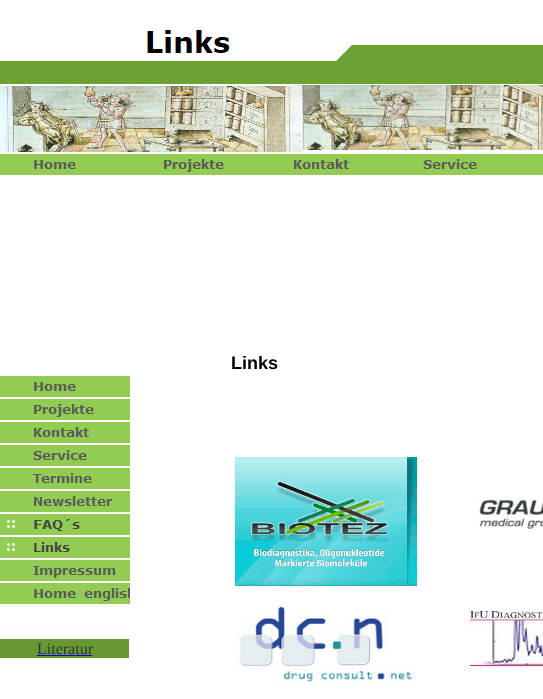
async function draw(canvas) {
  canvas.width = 543
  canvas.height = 699
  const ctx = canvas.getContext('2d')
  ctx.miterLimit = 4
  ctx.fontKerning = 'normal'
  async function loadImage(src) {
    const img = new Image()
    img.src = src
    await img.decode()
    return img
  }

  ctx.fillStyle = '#fff'
  ctx.fillRect(0, 0, 543, 699)
  ctx.fillStyle = '#6ca133'
  ctx.fillRect(352, 45, 191, 39)
  ctx.drawImage(await loadImage('image0.png'), 0, 30, 352, 54)
  ctx.drawImage(await loadImage('image2.png'), 291, 85, 252, 65)
  ctx.drawImage(await loadImage('image1.png'), 0, 86, 302, 66)
  ctx.fillStyle = '#92cc52'
  ctx.fillRect(0, 154, 543, 21)
  ctx.drawImage(await loadImage('image3.png'), 34, 160, 42, 9)
  ctx.drawImage(await loadImage('image4.png'), 164, 159, 60, 13)
  ctx.drawImage(await loadImage('image5.png'), 294, 159, 56, 10)
  ctx.drawImage(await loadImage('image6.png'), 423, 159, 54, 10)
  ctx.font = 'bold 18px Liberation Sans'
  ctx.fillStyle = '#000'
  ctx.fillText('Links', 231, 369)
  ctx.drawImage(await loadImage('image7.png'), 235, 457, 182, 129)
  ctx.drawImage(await loadImage('image8.png'), 479, 499, 64, 30)
  ctx.drawImage(await loadImage('image9.png'), 235, 602, 181, 81)
  ctx.drawImage(await loadImage('image10.png'), 470, 610, 73, 60)
  ctx.drawImage(await loadImage('image11.png'), 0, 376, 130, 21)
  ctx.drawImage(await loadImage('image12.png'), 0, 399, 130, 21)
  ctx.drawImage(await loadImage('image13.png'), 0, 422, 130, 21)
  ctx.drawImage(await loadImage('image14.png'), 0, 445, 130, 21)
  ctx.drawImage(await loadImage('image15.png'), 0, 468, 130, 21)
  ctx.drawImage(await loadImage('image16.png'), 0, 491, 130, 21)
  ctx.drawImage(await loadImage('image17.png'), 0, 514, 130, 21)
  ctx.drawImage(await loadImage('image18.png'), 0, 537, 130, 21)
  ctx.drawImage(await loadImage('image19.png'), 0, 560, 130, 21)
  ctx.drawImage(await loadImage('image20.png'), 0, 583, 130, 21)
  ctx.fillStyle = '#693'
  ctx.fillRect(0, 639, 129, 19)
  ctx.font = '16px Liberation Serif'
  ctx.fillStyle = '#333'
  ctx.fillText('Literatur', 37, 654)
  ctx.fillStyle = '#00e'
  ctx.fillRect(37, 655, 55, 1)
}

draw(document.querySelector('canvas'))
